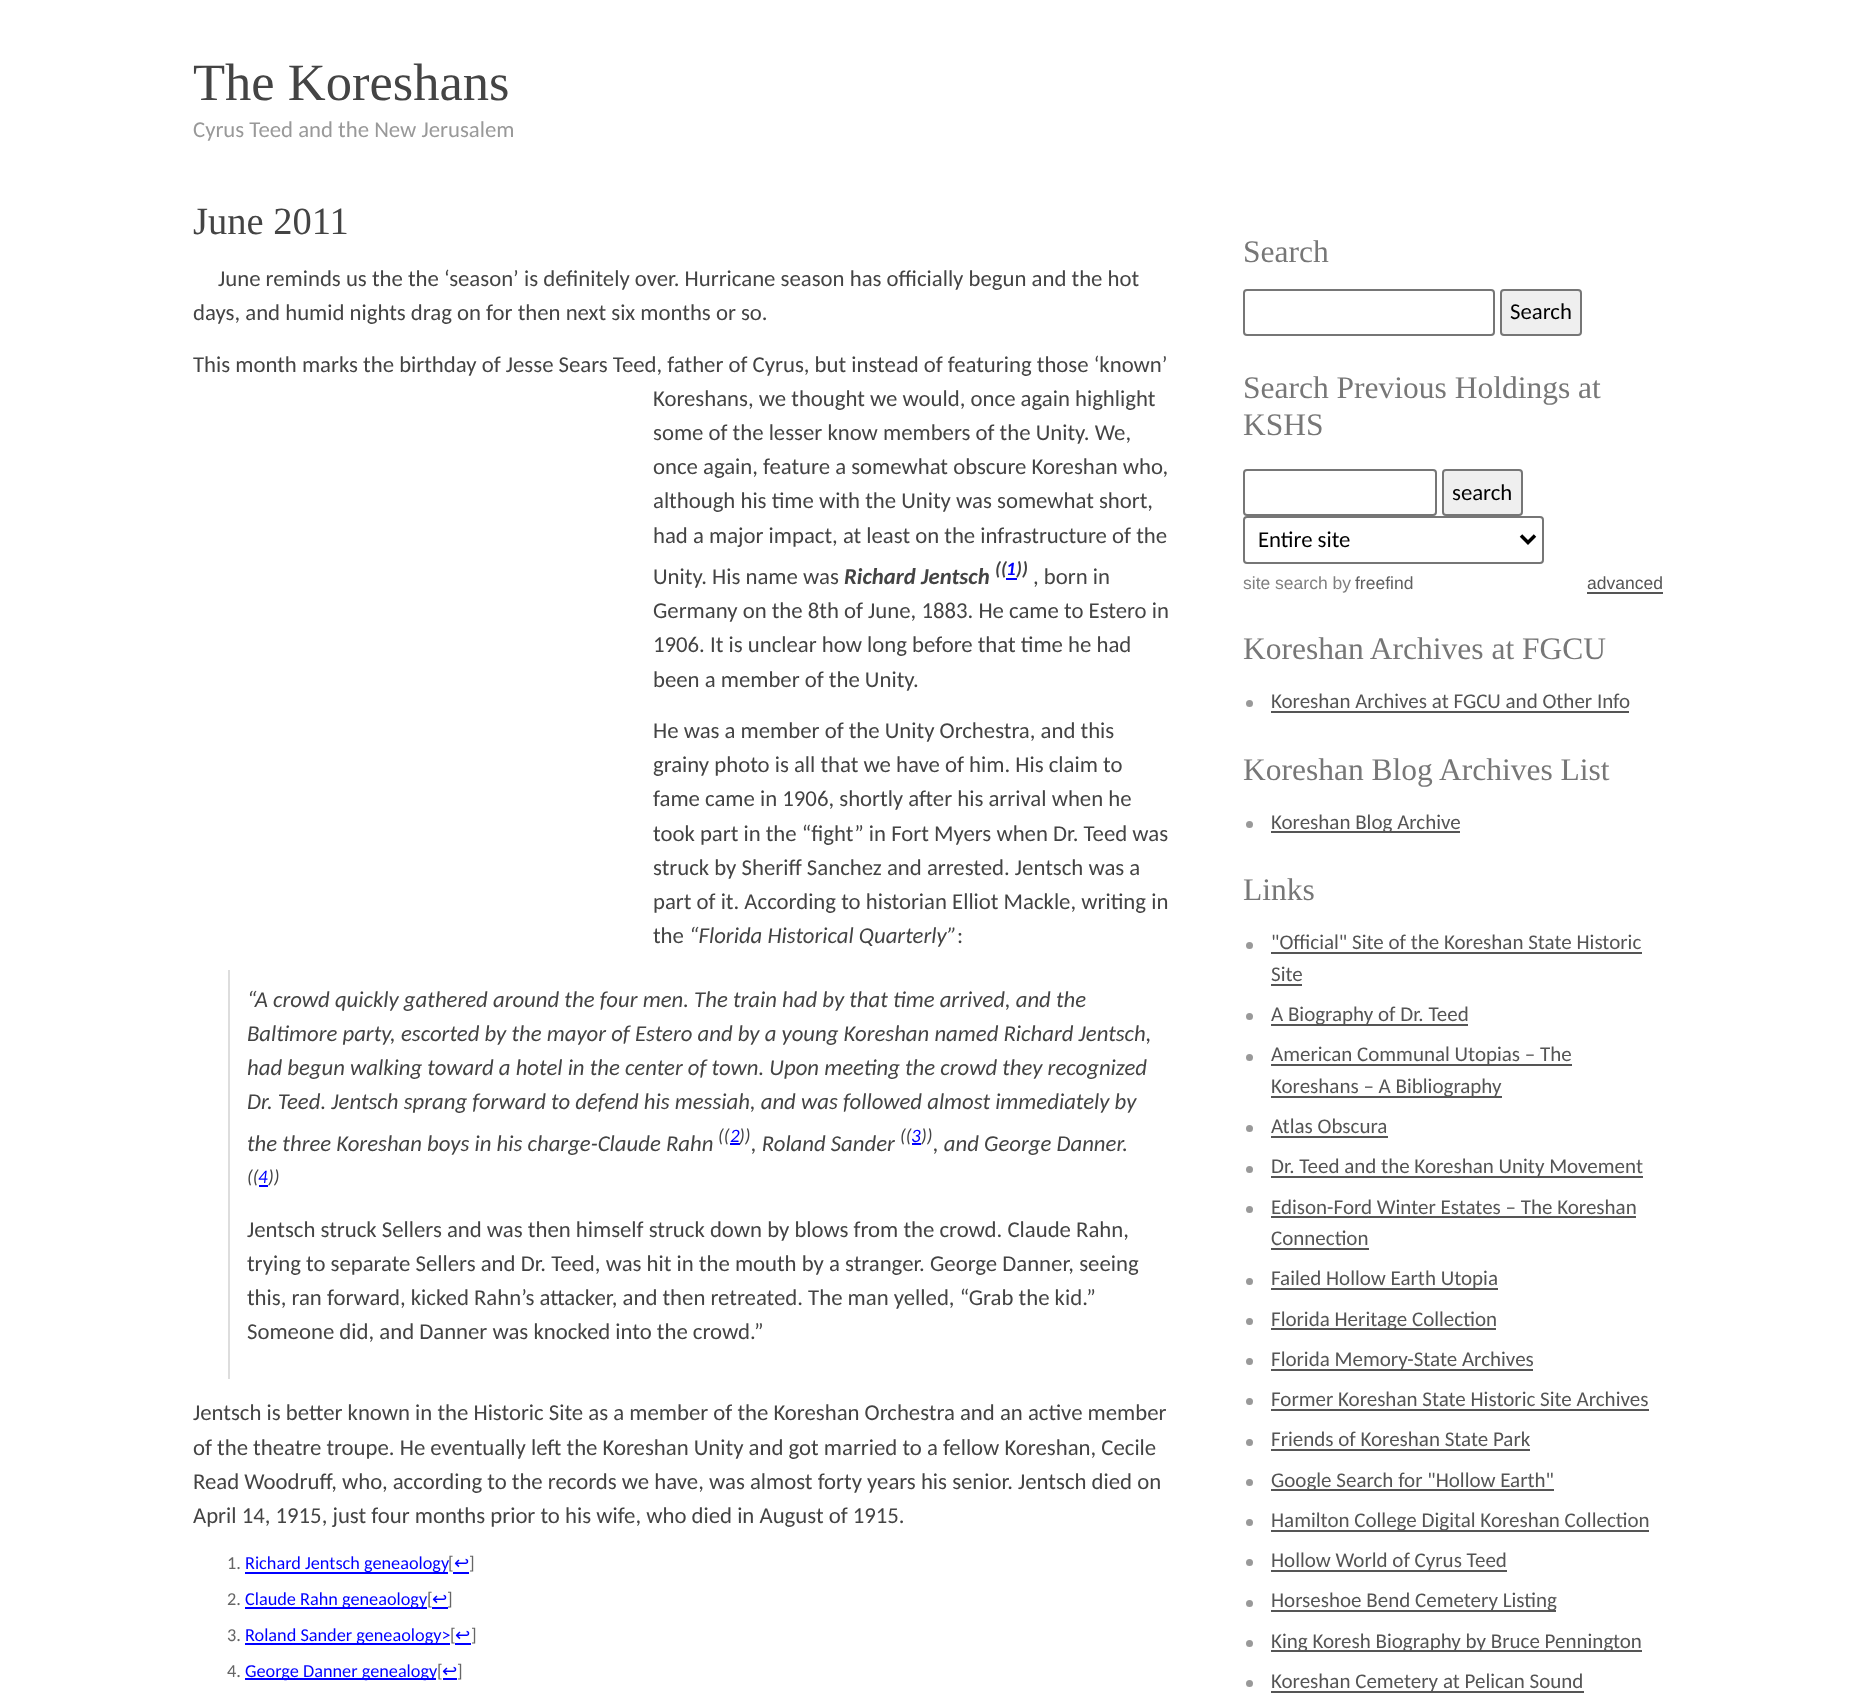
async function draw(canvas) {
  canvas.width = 1855
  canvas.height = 1702
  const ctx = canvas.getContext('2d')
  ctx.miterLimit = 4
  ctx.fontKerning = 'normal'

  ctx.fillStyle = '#fff'
  ctx.fillRect(0, 0, 1855, 1702)
  ctx.font = '52.5px Liberation Serif'
  ctx.fillStyle = '#444'
  ctx.fillText('The Koreshans', 193, 100)
  ctx.font = '22.75px Carlito'
  ctx.fillStyle = '#999'
  ctx.fillText('Cyrus Teed and the New Jerusalem', 193, 137)
  ctx.font = '38.5px Liberation Serif'
  ctx.fillStyle = '#444'
  ctx.fillText('June 2011', 193, 234)
  ctx.font = '22.75px Carlito'
  ctx.fillText('June reminds us the the ‘season’ is definitely over. Hurricane season has officially begun and the hot', 218, 286)
  ctx.fillText('days, and humid nights drag on for then next six months or so.', 193, 320)
  ctx.fillText('This month marks the birthday of Jesse Sears Teed, father of Cyrus, but instead of featuring those ‘known’', 193, 372)
  ctx.fillText('Koreshans, we thought we would, once again highlight', 653, 406)
  ctx.fillText('some of the lesser know members of the Unity. We,', 653, 440)
  ctx.fillText('once again, feature a somewhat obscure Koreshan who,', 653, 474)
  ctx.fillText('although his time with the Unity was somewhat short,', 653, 508)
  ctx.fillText('had a major impact, at least on the infrastructure of the', 653, 543)
  ctx.fillText('Unity. His name was', 653, 584)
  ctx.font = 'italic bold 22.75px Carlito'
  ctx.fillText('Richard Jentsch', 844, 584)
  ctx.font = 'italic bold 19px Carlito'
  ctx.fillText('((', 995, 575)
  ctx.fillStyle = '#00f'
  ctx.fillRect(1006, 578, 11, 2)
  ctx.fillText('1', 1006, 575)
  ctx.fillStyle = '#444'
  ctx.fillText('))', 1016, 575)
  ctx.font = '22.75px Carlito'
  ctx.fillText(', born in', 1033, 584)
  ctx.fillText('Germany on the 8th of June, 1883. He came to Estero in', 653, 618)
  ctx.fillText('1906. It is unclear how long before that time he had', 653, 652)
  ctx.fillText('been a member of the Unity.', 653, 687)
  ctx.fillText('He was a member of the Unity Orchestra, and this', 653, 738)
  ctx.fillText('grainy photo is all that we have of him. His claim to', 653, 772)
  ctx.fillText('fame came in 1906, shortly after his arrival when he', 653, 806)
  ctx.fillText('took part in the “fight” in Fort Myers when Dr. Teed was', 653, 841)
  ctx.fillText('struck by Sheriff Sanchez and arrested. Jentsch was a', 653, 875)
  ctx.fillText('part of it. According to historian Elliot Mackle, writing in', 653, 909)
  ctx.fillText('the', 653, 943)
  ctx.font = 'italic 22.75px Carlito'
  ctx.fillText('“Florida Historical Quarterly”', 689, 943)
  ctx.font = '22.75px Carlito'
  ctx.fillText(':', 957, 943)
  ctx.fillStyle = '#ddd'
  ctx.fillRect(228, 970, 2, 409)
  ctx.font = 'italic 22.75px Carlito'
  ctx.fillStyle = '#444'
  ctx.fillText('“A crowd quickly gathered around the four men. The train had by that time arrived, and the', 247, 1007)
  ctx.fillText('Baltimore party, escorted by the mayor of Estero and by a young Koreshan named Richard Jentsch,', 247, 1041)
  ctx.fillText('had begun walking toward a hotel in the center of town. Upon meeting the crowd they recognized', 247, 1075)
  ctx.fillText('Dr. Teed. Jentsch sprang forward to defend his messiah, and was followed almost immediately by', 247, 1109)
  ctx.fillText('the three Koreshan boys in his charge-Claude Rahn', 247, 1151)
  ctx.font = 'italic 19px Carlito'
  ctx.fillText('((', 718, 1142)
  ctx.fillStyle = '#00f'
  ctx.fillText('2', 730, 1142)
  ctx.fillRect(730, 1143, 10, 2)
  ctx.fillStyle = '#444'
  ctx.fillText('))', 739, 1142)
  ctx.font = 'italic 22.75px Carlito'
  ctx.fillText(', Roland Sander', 751, 1151)
  ctx.font = 'italic 19px Carlito'
  ctx.fillText('((', 900, 1142)
  ctx.fillStyle = '#00f'
  ctx.fillText('3', 911, 1142)
  ctx.fillStyle = '#444'
  ctx.fillText('))', 921, 1142)
  ctx.font = 'italic 22.75px Carlito'
  ctx.fillText(', and George Danner.', 933, 1151)
  ctx.fillStyle = '#00f'
  ctx.fillRect(912, 1143, 9, 2)
  ctx.font = 'italic 19px Carlito'
  ctx.fillStyle = '#444'
  ctx.fillText('((', 247, 1183)
  ctx.fillStyle = '#00f'
  ctx.fillRect(259, 1185, 9, 2)
  ctx.fillText('4', 258, 1183)
  ctx.fillStyle = '#444'
  ctx.fillText('))', 268, 1183)
  ctx.font = '22.75px Carlito'
  ctx.fillText('Jentsch struck Sellers and was then himself struck down by blows from the crowd. Claude Rahn,', 247, 1237)
  ctx.fillText('trying to separate Sellers and Dr. Teed, was hit in the mouth by a stranger. George Danner, seeing', 247, 1271)
  ctx.fillText('this, ran forward, kicked Rahn’s attacker, and then retreated. The man yelled, “Grab the kid.”', 247, 1305)
  ctx.fillText('Someone did, and Danner was knocked into the crowd.”', 247, 1339)
  ctx.fillText('Jentsch is better known in the Historic Site as a member of the Koreshan Orchestra and an active member', 193, 1420)
  ctx.fillText('of the theatre troupe. He eventually left the Koreshan Unity and got married to a fellow Koreshan, Cecile', 193, 1455)
  ctx.fillText('Read Woodruff, who, according to the records we have, was almost forty years his senior. Jentsch died on', 193, 1489)
  ctx.fillText('April 14, 1915, just four months prior to his wife, who died in August of 1915.', 193, 1523)
  ctx.font = '18.25px Carlito'
  ctx.fillStyle = '#666'
  ctx.fillText('1.', 227, 1569)
  ctx.fillStyle = '#00f'
  ctx.fillRect(245, 1572, 203, 2)
  ctx.fillText('Richard Jentsch geneaology', 245, 1569)
  ctx.fillStyle = '#666'
  ctx.fillText('[', 448, 1569)
  ctx.fillStyle = '#00f'
  ctx.fillRect(453, 1572, 16, 2)
  ctx.font = '18.25px DejaVu Sans'
  ctx.fillText('↩', 454, 1569)
  ctx.font = '18.25px Carlito'
  ctx.fillStyle = '#666'
  ctx.fillText(']', 469, 1569)
  ctx.fillText('2.', 227, 1605)
  ctx.fillStyle = '#00f'
  ctx.fillRect(245, 1607, 182, 2)
  ctx.fillText('Claude Rahn geneaology', 245, 1605)
  ctx.fillStyle = '#666'
  ctx.fillText('[', 427, 1605)
  ctx.fillStyle = '#00f'
  ctx.fillRect(432, 1607, 16, 2)
  ctx.font = '18.25px DejaVu Sans'
  ctx.fillText('↩', 432, 1605)
  ctx.font = '18.25px Carlito'
  ctx.fillStyle = '#666'
  ctx.fillText(']', 447, 1605)
  ctx.fillText('3.', 227, 1641)
  ctx.fillStyle = '#00f'
  ctx.fillRect(245, 1643, 205, 2)
  ctx.fillText('Roland Sander geneaology>', 245, 1641)
  ctx.fillStyle = '#666'
  ctx.fillText('[', 450, 1641)
  ctx.fillStyle = '#00f'
  ctx.fillRect(455, 1643, 16, 2)
  ctx.font = '18.25px DejaVu Sans'
  ctx.fillText('↩', 455, 1641)
  ctx.font = '18.25px Carlito'
  ctx.fillStyle = '#666'
  ctx.fillText(']', 471, 1641)
  ctx.fillText('4.', 227, 1677)
  ctx.fillStyle = '#00f'
  ctx.fillRect(245, 1678, 191, 2)
  ctx.fillText('George Danner genealogy', 245, 1677)
  ctx.fillStyle = '#666'
  ctx.fillText('[', 437, 1677)
  ctx.fillStyle = '#00f'
  ctx.fillRect(443, 1678, 14, 2)
  ctx.font = '18.25px DejaVu Sans'
  ctx.fillText('↩', 442, 1677)
  ctx.font = '18.25px Carlito'
  ctx.fillStyle = '#666'
  ctx.fillText(']', 457, 1677)
  ctx.font = '31.5px Liberation Serif'
  ctx.fillStyle = '#777'
  ctx.fillText('Search', 1243, 262)
  ctx.beginPath()
  ctx.roundRect(1244, 290, 250, 45, 3)
  ctx.strokeStyle = '#767676'
  ctx.lineWidth = 2
  ctx.stroke()
  ctx.fillStyle = '#efefef'
  ctx.beginPath()
  ctx.roundRect(1501, 290, 80, 45, 3)
  ctx.fill()
  ctx.stroke()
  ctx.font = '22.75px Carlito'
  ctx.fillStyle = '#000'
  ctx.fillText('Search', 1510, 319)
  ctx.font = '31.5px Liberation Serif'
  ctx.fillStyle = '#777'
  ctx.fillText('Search Previous Holdings at', 1243, 398)
  ctx.fillText('KSHS', 1243, 435)
  ctx.beginPath()
  ctx.roundRect(1244, 470, 192, 45, 3)
  ctx.stroke()
  ctx.fillStyle = '#efefef'
  ctx.beginPath()
  ctx.roundRect(1443, 470, 79, 45, 3)
  ctx.fill()
  ctx.stroke()
  ctx.font = '22.75px Carlito'
  ctx.fillStyle = '#000'
  ctx.fillText('search', 1452, 500)
  ctx.beginPath()
  ctx.roundRect(1244, 517, 299, 46, 3)
  ctx.stroke()
  ctx.beginPath()
  ctx.moveTo(1521, 535.5)
  ctx.lineTo(1528, 542.5)
  ctx.lineTo(1535, 535.5)
  ctx.strokeStyle = '#000'
  ctx.lineWidth = 3.5
  ctx.stroke()
  ctx.fillText('Entire site', 1258, 547)
  ctx.font = '17.5px Liberation Sans'
  ctx.fillStyle = '#808080'
  ctx.fillText('site search by', 1243, 589)
  ctx.fillStyle = '#606060'
  ctx.fillText('freefind', 1355, 589)
  ctx.fillStyle = '#555'
  ctx.fillText('advanced', 1587, 589)
  ctx.fillRect(1587, 592, 76, 2)
  ctx.font = '31.5px Liberation Serif'
  ctx.fillStyle = '#777'
  ctx.fillText('Koreshan Archives at FGCU', 1243, 659)
  ctx.fillStyle = '#999'
  ctx.beginPath()
  ctx.arc(1249.5, 703.5, 3.5, 0, 2 * Math.PI)
  ctx.fill()
  ctx.font = '21px Carlito'
  ctx.fillStyle = '#555'
  ctx.fillText('Koreshan Archives at FGCU and Other Info', 1271, 708)
  ctx.fillRect(1271, 711, 358, 2)
  ctx.font = '31.5px Liberation Serif'
  ctx.fillStyle = '#777'
  ctx.fillText('Koreshan Blog Archives List', 1243, 780)
  ctx.fillStyle = '#999'
  ctx.beginPath()
  ctx.arc(1249.5, 824.5, 3.5, 0, 2 * Math.PI)
  ctx.fill()
  ctx.fillStyle = '#555'
  ctx.fillRect(1271, 831, 189, 2)
  ctx.font = '21px Carlito'
  ctx.fillText('Koreshan Blog Archive', 1271, 829)
  ctx.font = '31.5px Liberation Serif'
  ctx.fillStyle = '#777'
  ctx.fillText('Links', 1243, 900)
  ctx.fillStyle = '#999'
  ctx.beginPath()
  ctx.arc(1249.5, 945.5, 3.5, 0, 2 * Math.PI)
  ctx.fill()
  ctx.font = '21px Carlito'
  ctx.fillStyle = '#555'
  ctx.fillText('"Official" Site of the Koreshan State Historic', 1271, 949)
  ctx.fillRect(1271, 952, 371, 2)
  ctx.fillText('Site', 1271, 981)
  ctx.fillRect(1271, 984, 31, 2)
  ctx.fillStyle = '#999'
  ctx.beginPath()
  ctx.arc(1249.5, 1016.5, 3.5, 0, 2 * Math.PI)
  ctx.fill()
  ctx.fillStyle = '#555'
  ctx.fillRect(1271, 1024, 197, 2)
  ctx.fillText('A Biography of Dr. Teed', 1271, 1021)
  ctx.fillStyle = '#999'
  ctx.beginPath()
  ctx.arc(1249.5, 1057.5, 3.5, 0, 2 * Math.PI)
  ctx.fill()
  ctx.fillStyle = '#555'
  ctx.fillRect(1271, 1064, 301, 2)
  ctx.fillText('American Communal Utopias – The', 1271, 1061)
  ctx.fillRect(1271, 1096, 231, 2)
  ctx.fillText('Koreshans – A Bibliography', 1271, 1093)
  ctx.fillStyle = '#999'
  ctx.beginPath()
  ctx.arc(1249.5, 1128.5, 3.5, 0, 2 * Math.PI)
  ctx.fill()
  ctx.fillStyle = '#555'
  ctx.fillText('Atlas Obscura', 1271, 1133)
  ctx.fillRect(1271, 1136, 117, 2)
  ctx.fillStyle = '#999'
  ctx.beginPath()
  ctx.arc(1249.5, 1169.5, 3.5, 0, 2 * Math.PI)
  ctx.fill()
  ctx.fillStyle = '#555'
  ctx.fillRect(1271, 1176, 372, 2)
  ctx.fillText('Dr. Teed and the Koreshan Unity Movement', 1271, 1173)
  ctx.fillStyle = '#999'
  ctx.beginPath()
  ctx.arc(1249.5, 1209.5, 3.5, 0, 2 * Math.PI)
  ctx.fill()
  ctx.fillStyle = '#555'
  ctx.fillText('Edison-Ford Winter Estates – The Koreshan', 1271, 1214)
  ctx.fillRect(1271, 1216, 365, 2)
  ctx.fillText('Connection', 1271, 1245)
  ctx.fillRect(1271, 1248, 98, 2)
  ctx.fillStyle = '#999'
  ctx.beginPath()
  ctx.arc(1249.5, 1281.5, 3.5, 0, 2 * Math.PI)
  ctx.fill()
  ctx.fillStyle = '#555'
  ctx.fillRect(1271, 1288, 227, 2)
  ctx.fillText('Failed Hollow Earth Utopia', 1271, 1285)
  ctx.fillStyle = '#999'
  ctx.beginPath()
  ctx.arc(1249.5, 1321.5, 3.5, 0, 2 * Math.PI)
  ctx.fill()
  ctx.fillStyle = '#555'
  ctx.fillRect(1271, 1328, 225, 2)
  ctx.fillText('Florida Heritage Collection', 1271, 1326)
  ctx.fillStyle = '#999'
  ctx.beginPath()
  ctx.arc(1249.5, 1361.5, 3.5, 0, 2 * Math.PI)
  ctx.fill()
  ctx.fillStyle = '#555'
  ctx.fillRect(1271, 1369, 262, 2)
  ctx.fillText('Florida Memory-State Archives', 1271, 1366)
  ctx.fillStyle = '#999'
  ctx.beginPath()
  ctx.arc(1249.5, 1401.5, 3.5, 0, 2 * Math.PI)
  ctx.fill()
  ctx.fillStyle = '#555'
  ctx.fillText('Former Koreshan State Historic Site Archives', 1271, 1406)
  ctx.fillRect(1271, 1409, 378, 2)
  ctx.fillStyle = '#999'
  ctx.beginPath()
  ctx.arc(1249.5, 1442.5, 3.5, 0, 2 * Math.PI)
  ctx.fill()
  ctx.fillStyle = '#555'
  ctx.fillText('Friends of Koreshan State Park', 1271, 1446)
  ctx.fillRect(1271, 1449, 259, 2)
  ctx.fillStyle = '#999'
  ctx.beginPath()
  ctx.arc(1249.5, 1482.5, 3.5, 0, 2 * Math.PI)
  ctx.fill()
  ctx.fillStyle = '#555'
  ctx.fillRect(1271, 1489, 283, 2)
  ctx.fillText('Google Search for "Hollow Earth"', 1271, 1487)
  ctx.fillStyle = '#999'
  ctx.beginPath()
  ctx.arc(1249.5, 1522.5, 3.5, 0, 2 * Math.PI)
  ctx.fill()
  ctx.fillStyle = '#555'
  ctx.fillRect(1271, 1530, 378, 2)
  ctx.fillText('Hamilton College Digital Koreshan Collection', 1271, 1527)
  ctx.fillStyle = '#999'
  ctx.beginPath()
  ctx.arc(1249.5, 1562.5, 3.5, 0, 2 * Math.PI)
  ctx.fill()
  ctx.fillStyle = '#555'
  ctx.fillRect(1271, 1570, 236, 2)
  ctx.fillText('Hollow World of Cyrus Teed', 1271, 1567)
  ctx.fillStyle = '#999'
  ctx.beginPath()
  ctx.arc(1249.5, 1603.5, 3.5, 0, 2 * Math.PI)
  ctx.fill()
  ctx.fillStyle = '#555'
  ctx.fillRect(1271, 1610, 285, 2)
  ctx.fillText('Horseshoe Bend Cemetery Listing', 1271, 1607)
  ctx.fillStyle = '#999'
  ctx.beginPath()
  ctx.arc(1249.5, 1643.5, 3.5, 0, 2 * Math.PI)
  ctx.fill()
  ctx.fillStyle = '#555'
  ctx.fillRect(1271, 1650, 371, 2)
  ctx.fillText('King Koresh Biography by Bruce Pennington', 1271, 1648)
  ctx.fillStyle = '#999'
  ctx.beginPath()
  ctx.arc(1249.5, 1683.5, 3.5, 0, 2 * Math.PI)
  ctx.fill()
  ctx.fillStyle = '#555'
  ctx.fillRect(1271, 1691, 313, 2)
  ctx.fillText('Koreshan Cemetery at Pelican Sound', 1271, 1688)
}

draw(document.querySelector('canvas'))
